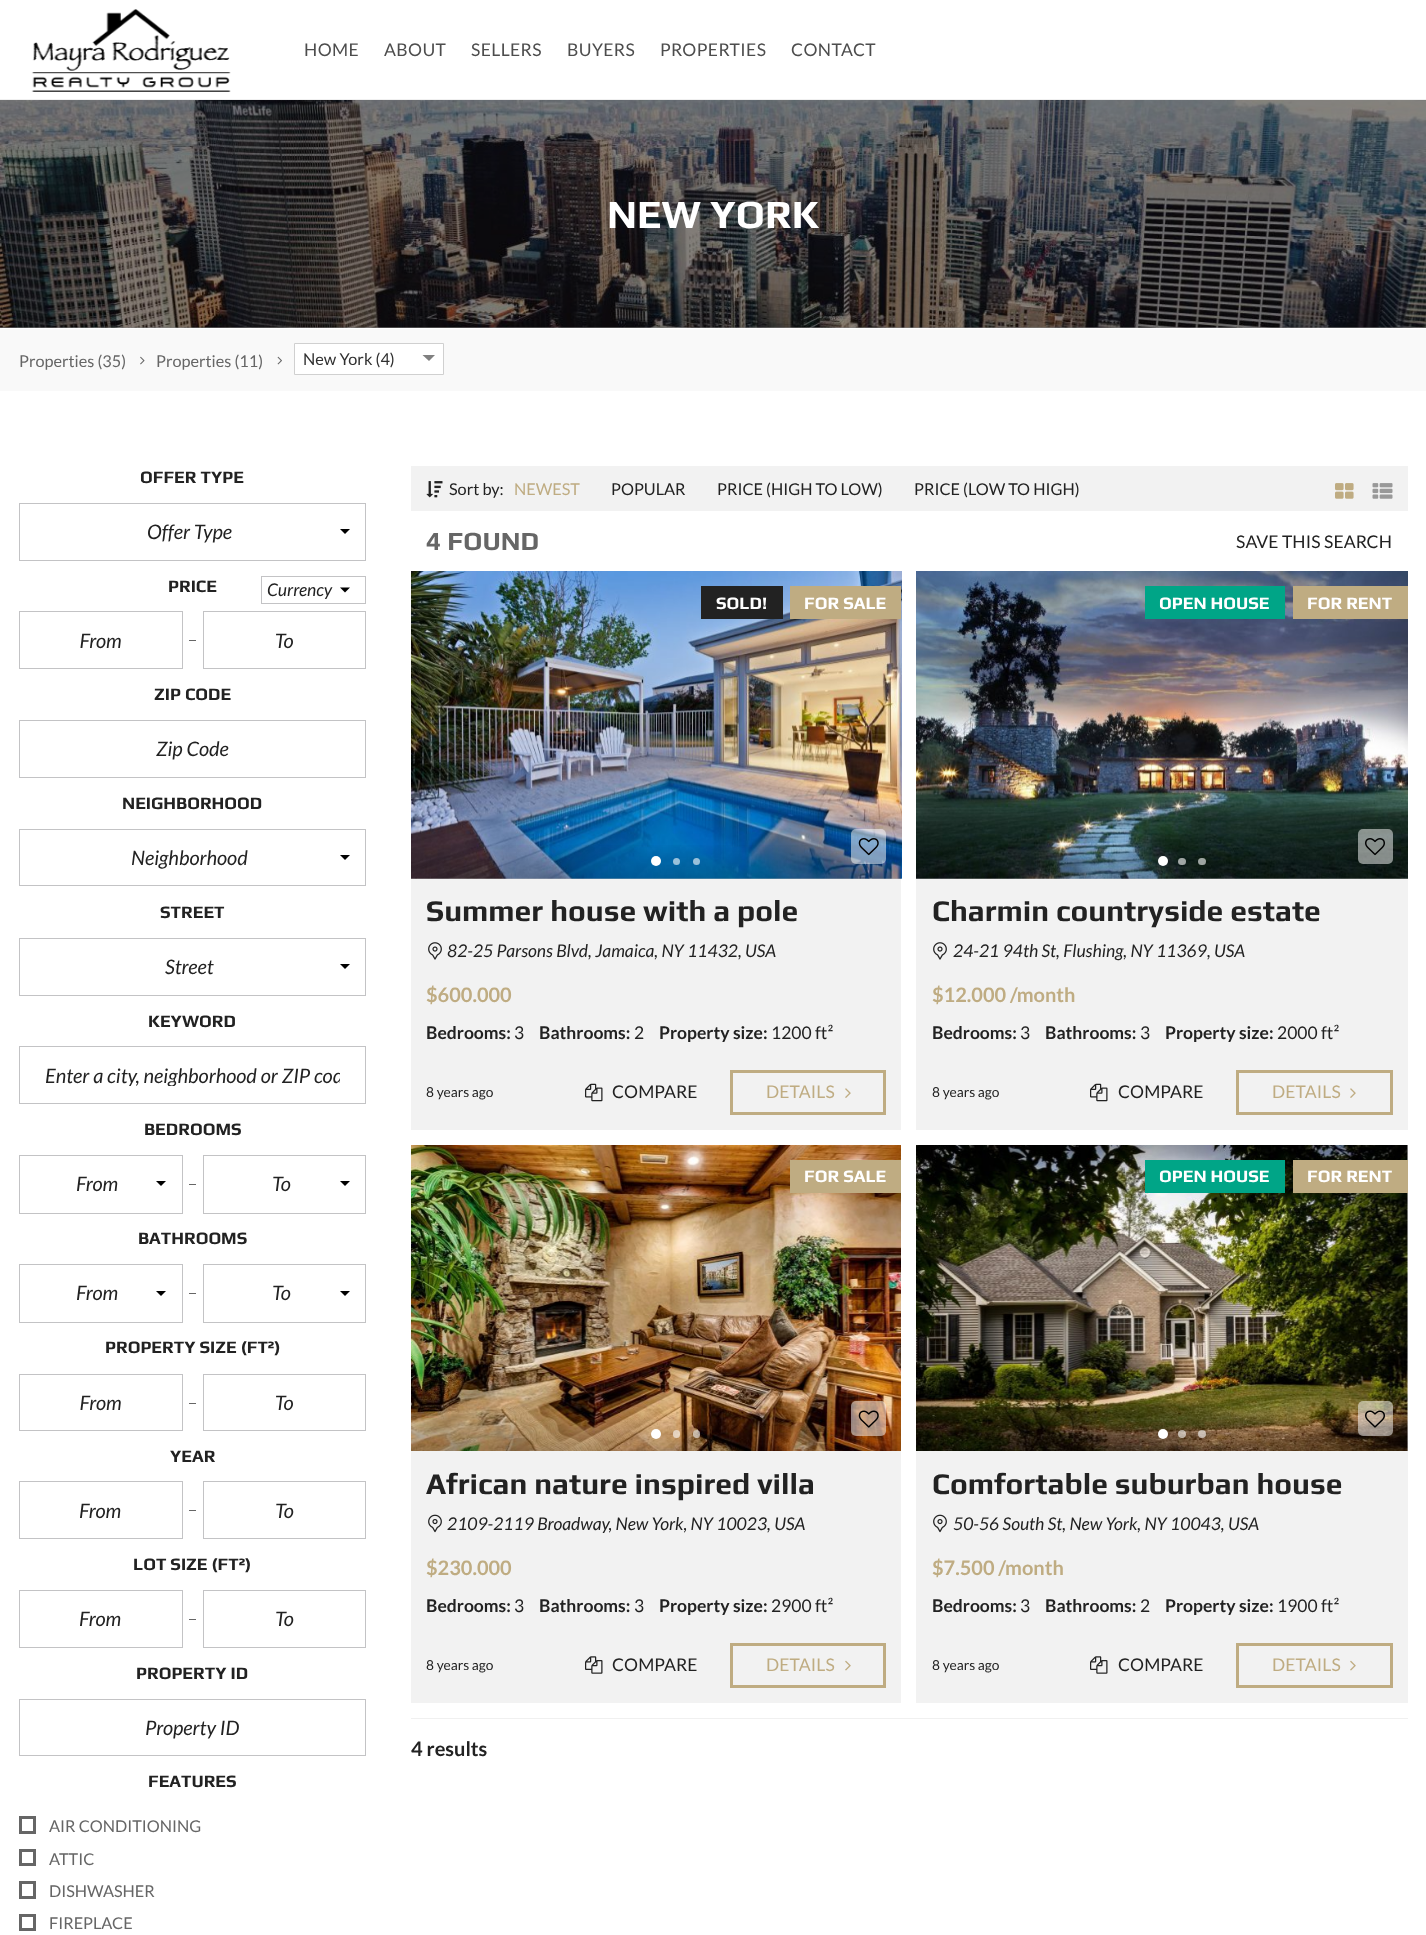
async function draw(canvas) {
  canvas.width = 1426
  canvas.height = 1935
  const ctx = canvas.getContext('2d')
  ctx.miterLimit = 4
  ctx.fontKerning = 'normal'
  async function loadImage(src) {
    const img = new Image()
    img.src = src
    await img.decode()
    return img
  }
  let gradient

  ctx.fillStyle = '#fff'
  ctx.fillRect(0, 0, 1426, 1935)
  ctx.drawImage(await loadImage('image0.png'), 31, 9, 200, 83)
  ctx.letterSpacing = '0.4px'
  ctx.font = '17.5px Lato'
  ctx.fillStyle = '#4d4d4d'
  ctx.fillText('HOME', 304, 56)
  ctx.fillText('ABOUT', 384, 56)
  ctx.fillText('SELLERS', 471, 56)
  ctx.fillText('BUYERS', 567, 56)
  ctx.fillText('PROPERTIES', 660, 56)
  ctx.fillText('CONTACT', 791, 56)
  ctx.fillStyle = '#f0f0f0'
  ctx.fillRect(0, 99, 1426, 1)
  ctx.fillStyle = '#858585'
  ctx.fillRect(0, 327, 1426, 1)
  ctx.drawImage(await loadImage('image1.png'), 0, 100, 1426, 228)
  ctx.letterSpacing = '0px'
  ctx.font = 'bold 40px Play'
  ctx.fillStyle = '#fff'
  ctx.fillText('NEW YORK', 607, 228)
  ctx.fillStyle = '#f9f9f9'
  ctx.fillRect(0, 329, 1426, 62)
  ctx.font = '16.25px Lato'
  ctx.fillStyle = '#666'
  ctx.fillText('Properties (35)', 19, 367)
  ctx.drawImage(await loadImage('image2.png'), 140, 356, 5, 9)
  ctx.fillText('Properties (11)', 156, 367)
  ctx.drawImage(await loadImage('image3.png'), 277, 356, 5, 9)
  ctx.fillStyle = '#fff'
  ctx.beginPath()
  ctx.rect(294.5, 343.5, 149, 31)
  ctx.fill()
  ctx.strokeStyle = '#d0d0d0'
  ctx.stroke()
  ctx.fillStyle = '#303030'
  ctx.fillText('New York (4)', 303, 365)
  ctx.fillStyle = '#808080'
  ctx.beginPath()
  ctx.moveTo(422.5, 355)
  ctx.lineTo(435, 355)
  ctx.lineTo(429, 361)
  ctx.closePath()
  ctx.fill()
  ctx.font = 'bold 17.5px Play'
  ctx.fillStyle = '#222'
  ctx.fillText('OFFER TYPE', 140, 483)
  ctx.strokeStyle = '#c3c3c5'
  ctx.strokeRect(19.5, 503.5, 346, 57)
  ctx.font = 'italic 20px Lato'
  ctx.fillText('Offer Type', 147, 539)
  ctx.fillStyle = '#000'
  ctx.beginPath()
  ctx.moveTo(340, 529)
  ctx.lineTo(350, 529)
  ctx.lineTo(345, 534)
  ctx.closePath()
  ctx.fill()
  ctx.font = 'bold 17.5px Play'
  ctx.fillStyle = '#222'
  ctx.fillText('PRICE', 168, 592)
  ctx.strokeRect(261.5, 576.5, 104, 27)
  ctx.font = 'italic 17.5px Lato'
  ctx.fillText('Currency', 267, 596)
  ctx.fillStyle = '#000'
  ctx.beginPath()
  ctx.moveTo(340, 587.5)
  ctx.lineTo(350, 587.5)
  ctx.lineTo(345, 592.5)
  ctx.closePath()
  ctx.fill()
  ctx.strokeRect(19.5, 611.5, 163, 57)
  ctx.fillStyle = '#666'
  ctx.fillRect(189, 640, 7, 1)
  ctx.strokeRect(203.5, 611.5, 162, 57)
  ctx.font = 'bold 17.5px Play'
  ctx.fillStyle = '#222'
  ctx.fillText('ZIP CODE', 154, 700)
  ctx.strokeRect(19.5, 720.5, 346, 57)
  ctx.fillText('NEIGHBORHOOD', 122, 809)
  ctx.strokeRect(19.5, 829.5, 346, 56)
  ctx.font = 'italic 20px Lato'
  ctx.fillText('Neighborhood', 131, 865)
  ctx.fillStyle = '#000'
  ctx.beginPath()
  ctx.moveTo(340, 855)
  ctx.lineTo(350, 855)
  ctx.lineTo(345, 860)
  ctx.closePath()
  ctx.fill()
  ctx.font = 'bold 17.5px Play'
  ctx.fillStyle = '#222'
  ctx.fillText('STREET', 160, 918)
  ctx.strokeRect(19.5, 938.5, 346, 57)
  ctx.font = 'italic 20px Lato'
  ctx.fillText('Street', 165, 974)
  ctx.fillStyle = '#000'
  ctx.beginPath()
  ctx.moveTo(340, 964)
  ctx.lineTo(350, 964)
  ctx.lineTo(345, 969)
  ctx.closePath()
  ctx.fill()
  ctx.font = 'bold 17.5px Play'
  ctx.fillStyle = '#222'
  ctx.fillText('KEYWORD', 148, 1027)
  ctx.strokeRect(19.5, 1046.5, 346, 57)
  ctx.save()
  ctx.beginPath()
  ctx.rect(45, 1063, 295, 23)
  ctx.clip()
  ctx.font = 'italic 20px Lato'
  ctx.fillText('Enter a city, neighborhood or ZIP cod', 45, 1083)
  ctx.restore()
  ctx.fillText('BEDROOMS', 144, 1135)
  ctx.strokeRect(19.5, 1155.5, 163, 58)
  ctx.font = 'italic 20px Lato'
  ctx.fillText('From', 76, 1191)
  ctx.fillStyle = '#000'
  ctx.beginPath()
  ctx.moveTo(156, 1181)
  ctx.lineTo(166, 1181)
  ctx.lineTo(161, 1186)
  ctx.closePath()
  ctx.fill()
  ctx.fillStyle = '#666'
  ctx.fillRect(189, 1184, 7, 1)
  ctx.strokeRect(203.5, 1155.5, 162, 58)
  ctx.fillStyle = '#222'
  ctx.fillText('To', 272, 1191)
  ctx.fillStyle = '#000'
  ctx.beginPath()
  ctx.moveTo(340, 1181)
  ctx.lineTo(350, 1181)
  ctx.lineTo(345, 1186)
  ctx.closePath()
  ctx.fill()
  ctx.font = 'bold 17.5px Play'
  ctx.fillStyle = '#222'
  ctx.fillText('BATHROOMS', 138, 1244)
  ctx.strokeRect(19.5, 1264.5, 163, 58)
  ctx.font = 'italic 20px Lato'
  ctx.fillText('From', 76, 1300)
  ctx.fillStyle = '#000'
  ctx.beginPath()
  ctx.moveTo(156, 1291)
  ctx.lineTo(166, 1291)
  ctx.lineTo(161, 1296)
  ctx.closePath()
  ctx.fill()
  ctx.fillStyle = '#666'
  ctx.fillRect(189, 1293, 7, 1)
  ctx.strokeRect(203.5, 1264.5, 162, 58)
  ctx.fillStyle = '#222'
  ctx.fillText('To', 272, 1300)
  ctx.fillStyle = '#000'
  ctx.beginPath()
  ctx.moveTo(340, 1291)
  ctx.lineTo(350, 1291)
  ctx.lineTo(345, 1296)
  ctx.closePath()
  ctx.fill()
  ctx.font = 'bold 17.5px Play'
  ctx.fillStyle = '#222'
  ctx.fillText('PROPERTY SIZE (FT²)', 105, 1353)
  ctx.strokeRect(19.5, 1374.5, 163, 56)
  ctx.fillStyle = '#666'
  ctx.fillRect(189, 1403, 7, 1)
  ctx.strokeRect(203.5, 1374.5, 162, 56)
  ctx.fillStyle = '#222'
  ctx.fillText('YEAR', 170, 1462)
  ctx.strokeRect(19.5, 1481.5, 163, 57)
  ctx.font = 'italic 20px Lato'
  ctx.fillText('From', 79, 1518)
  ctx.fillStyle = '#666'
  ctx.fillRect(189, 1510, 7, 1)
  ctx.strokeRect(203.5, 1481.5, 162, 57)
  ctx.fillStyle = '#222'
  ctx.fillText('To', 275, 1518)
  ctx.font = 'bold 17.5px Play'
  ctx.fillText('LOT SIZE (FT²)', 133, 1570)
  ctx.strokeRect(19.5, 1590.5, 163, 57)
  ctx.font = 'italic 20px Lato'
  ctx.fillText('From', 79, 1626)
  ctx.fillStyle = '#666'
  ctx.fillRect(189, 1619, 7, 1)
  ctx.strokeRect(203.5, 1590.5, 162, 57)
  ctx.fillStyle = '#222'
  ctx.fillText('To', 275, 1626)
  ctx.font = 'bold 17.5px Play'
  ctx.fillText('PROPERTY ID', 136, 1679)
  ctx.strokeRect(19.5, 1699.5, 346, 56)
  ctx.font = 'italic 20px Lato'
  ctx.fillText('Property ID', 145, 1735)
  ctx.font = 'bold 17.5px Play'
  ctx.fillText('FEATURES', 148, 1787)
  ctx.strokeStyle = '#666'
  ctx.lineWidth = 3
  ctx.strokeRect(20.5, 1817.5, 14, 15)
  ctx.font = '16.25px Lato'
  ctx.fillStyle = '#666'
  ctx.fillText('AIR CONDITIONING', 49, 1832)
  ctx.strokeRect(20.5, 1850.5, 14, 14)
  ctx.fillText('ATTIC', 49, 1865)
  ctx.strokeRect(20.5, 1882.5, 14, 15)
  ctx.fillText('DISHWASHER', 49, 1897)
  ctx.strokeRect(20.5, 1915.5, 14, 14)
  ctx.fillText('FIREPLACE', 49, 1929)
  ctx.fillStyle = '#f2f2f2'
  ctx.fillRect(411, 466, 997, 45)
  ctx.drawImage(await loadImage('image4.png'), 426, 481, 17, 17)
  ctx.fillStyle = '#222'
  ctx.fillText('Sort by:', 449, 495)
  ctx.fillStyle = '#bfac82'
  ctx.fillText('NEWEST', 514, 495)
  ctx.fillStyle = '#222'
  ctx.fillText('POPULAR', 611, 495)
  ctx.fillText('PRICE (HIGH TO LOW)', 717, 495)
  ctx.fillText('PRICE (LOW TO HIGH)', 914, 495)
  ctx.drawImage(await loadImage('image5.png'), 1335, 483, 19, 16)
  ctx.drawImage(await loadImage('image6.png'), 1372, 483, 21, 16)
  ctx.font = 'bold 26.25px Play'
  ctx.fillStyle = '#666'
  ctx.fillText('4 FOUND', 426, 550)
  ctx.letterSpacing = '0.1px'
  ctx.font = '17.5px Lato'
  ctx.fillStyle = '#222'
  ctx.fillText('SAVE THIS SEARCH', 1236, 548)
  ctx.fillStyle = '#f2f2f2'
  ctx.fillRect(411, 878, 490, 252)
  ctx.drawImage(await loadImage('image7.png'), 80, 633, 213, 127)
  ctx.drawImage(await loadImage('image8.png'), 411, 571, 491, 308)
  ctx.fillStyle = '#222'
  ctx.fillRect(701, 586, 82, 33)
  ctx.letterSpacing = '0px'
  ctx.font = 'bold 17.5px Play'
  ctx.fillStyle = '#fff'
  ctx.fillText('SOLD!', 716, 609)
  ctx.fillStyle = '#bfac82'
  ctx.fillRect(790, 586, 111, 33)
  ctx.fillStyle = '#fff'
  ctx.fillText('FOR SALE', 804, 609)
  gradient = ctx.createLinearGradient(656, 841, 656, 879)
  gradient.addColorStop(0, '#00000000')
  gradient.addColorStop(1, '#00000033')
  ctx.fillStyle = gradient
  ctx.fillRect(411, 845, 490, 34)
  ctx.fillStyle = '#fff'
  ctx.beginPath()
  ctx.arc(656, 861, 5, 0, 2 * Math.PI)
  ctx.fill()
  ctx.fillStyle = '#ffffff99'
  ctx.beginPath()
  ctx.arc(676.5, 861.5, 3.5, 0, 2 * Math.PI)
  ctx.fill()
  ctx.beginPath()
  ctx.arc(696.5, 861.5, 3.5, 0, 2 * Math.PI)
  ctx.fill()
  ctx.fillStyle = '#ffffff80'
  ctx.beginPath()
  ctx.roundRect(851, 829, 35, 35, 5)
  ctx.fill()
  ctx.drawImage(await loadImage('image9.png'), 858, 838, 21, 18)
  ctx.font = 'bold 30px Play'
  ctx.fillStyle = '#222'
  ctx.fillText('Summer house with a pole', 426, 921)
  ctx.drawImage(await loadImage('image10.png'), 428, 942, 14, 18)
  ctx.font = 'italic 17.5px Lato'
  ctx.fillText('82-25 Parsons Blvd, Jamaica, NY 11432, USA', 447, 957)
  ctx.font = 'bold 20px Lato'
  ctx.fillStyle = '#bfac82'
  ctx.fillText('$600.000', 426, 1002)
  ctx.font = 'bold 17.5px Lato'
  ctx.fillStyle = '#222'
  ctx.fillText('Bedrooms:', 426, 1039)
  ctx.font = '17.5px Lato'
  ctx.fillText('3', 514, 1039)
  ctx.font = 'bold 17.5px Lato'
  ctx.fillText('Bathrooms:', 539, 1039)
  ctx.font = '17.5px Lato'
  ctx.fillText('2', 634, 1039)
  ctx.font = 'bold 17.5px Lato'
  ctx.fillText('Property size:', 659, 1039)
  ctx.font = '17.5px Lato'
  ctx.fillText('1200 ft²', 771, 1039)
  ctx.font = '13.75px Lato'
  ctx.fillText('8 years ago', 426, 1097)
  ctx.drawImage(await loadImage('image11.png'), 585, 1083, 18, 19)
  ctx.letterSpacing = '0.1px'
  ctx.font = '17.5px Lato'
  ctx.fillText('COMPARE', 612, 1098)
  ctx.strokeStyle = '#bfac82'
  ctx.strokeRect(731.5, 1071.5, 153, 42)
  ctx.fillStyle = '#bfac82'
  ctx.fillText('DETAILS', 766, 1098)
  ctx.drawImage(await loadImage('image12.png'), 845, 1088, 6, 10)
  ctx.fillStyle = '#f2f2f2'
  ctx.fillRect(916, 878, 492, 252)
  ctx.drawImage(await loadImage('image13.png'), 916, 571, 492, 308)
  ctx.fillStyle = '#00a587'
  ctx.fillRect(1145, 586, 140, 33)
  ctx.letterSpacing = '0px'
  ctx.font = 'bold 17.5px Play'
  ctx.fillStyle = '#fff'
  ctx.fillText('OPEN HOUSE', 1159, 609)
  ctx.fillStyle = '#bfac82'
  ctx.fillRect(1293, 586, 115, 33)
  ctx.fillStyle = '#fff'
  ctx.fillText('FOR RENT', 1307, 609)
  gradient = ctx.createLinearGradient(1162, 841, 1162, 879)
  gradient.addColorStop(0, '#00000000')
  gradient.addColorStop(1, '#00000033')
  ctx.fillStyle = gradient
  ctx.fillRect(916, 845, 492, 34)
  ctx.fillStyle = '#fff'
  ctx.beginPath()
  ctx.arc(1163, 861, 5, 0, 2 * Math.PI)
  ctx.fill()
  ctx.fillStyle = '#ffffff99'
  ctx.beginPath()
  ctx.roundRect(1178, 858, 8, 7, 3.5)
  ctx.fill()
  ctx.beginPath()
  ctx.roundRect(1198, 858, 8, 7, 3.5)
  ctx.fill()
  ctx.fillStyle = '#ffffff80'
  ctx.beginPath()
  ctx.roundRect(1358, 829, 35, 35, 5)
  ctx.fill()
  ctx.drawImage(await loadImage('image14.png'), 1365, 838, 20, 18)
  ctx.font = 'bold 30px Play'
  ctx.fillStyle = '#222'
  ctx.fillText('Charmin countryside estate', 932, 921)
  ctx.drawImage(await loadImage('image10.png'), 933, 942, 14, 18)
  ctx.font = 'italic 17.5px Lato'
  ctx.fillText('24-21 94th St, Flushing, NY 11369, USA', 953, 957)
  ctx.font = 'bold 20px Lato'
  ctx.fillStyle = '#bfac82'
  ctx.fillText('$12.000 /month', 932, 1002)
  ctx.font = 'bold 17.5px Lato'
  ctx.fillStyle = '#222'
  ctx.fillText('Bedrooms:', 932, 1039)
  ctx.font = '17.5px Lato'
  ctx.fillText('3', 1020, 1039)
  ctx.font = 'bold 17.5px Lato'
  ctx.fillText('Bathrooms:', 1045, 1039)
  ctx.font = '17.5px Lato'
  ctx.fillText('3', 1140, 1039)
  ctx.font = 'bold 17.5px Lato'
  ctx.fillText('Property size:', 1165, 1039)
  ctx.font = '17.5px Lato'
  ctx.fillText('2000 ft²', 1277, 1039)
  ctx.font = '13.75px Lato'
  ctx.fillText('8 years ago', 932, 1097)
  ctx.drawImage(await loadImage('image11.png'), 1090, 1083, 18, 19)
  ctx.letterSpacing = '0.1px'
  ctx.font = '17.5px Lato'
  ctx.fillText('COMPARE', 1118, 1098)
  ctx.strokeRect(1237.5, 1071.5, 154, 42)
  ctx.fillStyle = '#bfac82'
  ctx.fillText('DETAILS', 1272, 1098)
  ctx.drawImage(await loadImage('image12.png'), 1350, 1088, 6, 10)
  ctx.fillStyle = '#f2f2f2'
  ctx.fillRect(411, 1451, 490, 252)
  ctx.drawImage(await loadImage('image15.png'), 80, 1395, 213, 16)
  ctx.drawImage(await loadImage('image16.png'), 411, 1145, 490, 306)
  ctx.fillStyle = '#bfac82'
  ctx.fillRect(790, 1160, 111, 33)
  ctx.letterSpacing = '0px'
  ctx.font = 'bold 17.5px Play'
  ctx.fillStyle = '#fff'
  ctx.fillText('FOR SALE', 804, 1182)
  ctx.beginPath()
  ctx.arc(656, 1434, 5, 0, 2 * Math.PI)
  ctx.fill()
  ctx.fillStyle = '#ffffff99'
  ctx.beginPath()
  ctx.roundRect(673, 1430, 7, 8, 3.5)
  ctx.fill()
  ctx.beginPath()
  ctx.roundRect(693, 1430, 7, 8, 3.5)
  ctx.fill()
  ctx.fillStyle = '#ffffff80'
  ctx.beginPath()
  ctx.roundRect(851, 1401, 35, 35, 5)
  ctx.fill()
  ctx.drawImage(await loadImage('image17.png'), 858, 1410, 21, 18)
  ctx.font = 'bold 30px Play'
  ctx.fillStyle = '#222'
  ctx.fillText('African nature inspired villa', 426, 1494)
  ctx.drawImage(await loadImage('image18.png'), 428, 1514, 14, 19)
  ctx.font = 'italic 17.5px Lato'
  ctx.fillText('2109-2119 Broadway, New York, NY 10023, USA', 447, 1530)
  ctx.font = 'bold 20px Lato'
  ctx.fillStyle = '#bfac82'
  ctx.fillText('$230.000', 426, 1575)
  ctx.font = 'bold 17.5px Lato'
  ctx.fillStyle = '#222'
  ctx.fillText('Bedrooms:', 426, 1612)
  ctx.font = '17.5px Lato'
  ctx.fillText('3', 514, 1612)
  ctx.font = 'bold 17.5px Lato'
  ctx.fillText('Bathrooms:', 539, 1612)
  ctx.font = '17.5px Lato'
  ctx.fillText('3', 634, 1612)
  ctx.font = 'bold 17.5px Lato'
  ctx.fillText('Property size:', 659, 1612)
  ctx.font = '17.5px Lato'
  ctx.fillText('2900 ft²', 771, 1612)
  ctx.font = '13.75px Lato'
  ctx.fillText('8 years ago', 426, 1670)
  ctx.drawImage(await loadImage('image19.png'), 585, 1656, 18, 18)
  ctx.letterSpacing = '0.1px'
  ctx.font = '17.5px Lato'
  ctx.fillText('COMPARE', 612, 1671)
  ctx.strokeRect(731.5, 1644.5, 153, 42)
  ctx.fillStyle = '#bfac82'
  ctx.fillText('DETAILS', 766, 1671)
  ctx.drawImage(await loadImage('image20.png'), 845, 1660, 6, 11)
  ctx.fillStyle = '#f2f2f2'
  ctx.fillRect(916, 1145, 492, 558)
  ctx.drawImage(await loadImage('image21.png'), 916, 1145, 492, 306)
  ctx.fillStyle = '#00a587'
  ctx.fillRect(1145, 1160, 140, 33)
  ctx.letterSpacing = '0px'
  ctx.font = 'bold 17.5px Play'
  ctx.fillStyle = '#fff'
  ctx.fillText('OPEN HOUSE', 1159, 1182)
  ctx.fillStyle = '#bfac82'
  ctx.fillRect(1293, 1160, 115, 33)
  ctx.fillStyle = '#fff'
  ctx.fillText('FOR RENT', 1307, 1182)
  gradient = ctx.createLinearGradient(1162, 1414, 1162, 1451)
  gradient.addColorStop(0, '#00000000')
  gradient.addColorStop(1, '#00000033')
  ctx.fillStyle = gradient
  ctx.fillRect(916, 1418, 492, 33)
  ctx.fillStyle = '#fff'
  ctx.beginPath()
  ctx.arc(1163, 1434, 5, 0, 2 * Math.PI)
  ctx.fill()
  ctx.fillStyle = '#ffffff99'
  ctx.beginPath()
  ctx.arc(1182, 1434, 4, 0, 2 * Math.PI)
  ctx.fill()
  ctx.beginPath()
  ctx.arc(1202, 1434, 4, 0, 2 * Math.PI)
  ctx.fill()
  ctx.fillStyle = '#ffffff80'
  ctx.beginPath()
  ctx.roundRect(1358, 1401, 35, 35, 5)
  ctx.fill()
  ctx.drawImage(await loadImage('image22.png'), 1365, 1410, 20, 18)
  ctx.font = 'bold 30px Play'
  ctx.fillStyle = '#222'
  ctx.fillText('Comfortable suburban house', 932, 1494)
  ctx.drawImage(await loadImage('image18.png'), 933, 1514, 14, 19)
  ctx.font = 'italic 17.5px Lato'
  ctx.fillText('50-56 South St, New York, NY 10043, USA', 953, 1530)
  ctx.font = 'bold 20px Lato'
  ctx.fillStyle = '#bfac82'
  ctx.fillText('$7.500 /month', 932, 1575)
  ctx.font = 'bold 17.5px Lato'
  ctx.fillStyle = '#222'
  ctx.fillText('Bedrooms:', 932, 1612)
  ctx.font = '17.5px Lato'
  ctx.fillText('3', 1020, 1612)
  ctx.font = 'bold 17.5px Lato'
  ctx.fillText('Bathrooms:', 1045, 1612)
  ctx.font = '17.5px Lato'
  ctx.fillText('2', 1140, 1612)
  ctx.font = 'bold 17.5px Lato'
  ctx.fillText('Property size:', 1165, 1612)
  ctx.font = '17.5px Lato'
  ctx.fillText('1900 ft²', 1277, 1612)
  ctx.font = '13.75px Lato'
  ctx.fillText('8 years ago', 932, 1670)
  ctx.drawImage(await loadImage('image19.png'), 1090, 1656, 18, 18)
  ctx.letterSpacing = '0.1px'
  ctx.font = '17.5px Lato'
  ctx.fillText('COMPARE', 1118, 1671)
  ctx.strokeRect(1237.5, 1644.5, 154, 42)
  ctx.fillStyle = '#bfac82'
  ctx.fillText('DETAILS', 1272, 1671)
  ctx.drawImage(await loadImage('image20.png'), 1350, 1660, 6, 11)
  ctx.fillStyle = '#f0f0f0'
  ctx.fillRect(411, 1718, 997, 1)
  ctx.letterSpacing = '0px'
  ctx.font = 'bold 20px Lato'
  ctx.fillStyle = '#222'
  ctx.fillText('4 results', 411, 1756)
}

draw(document.querySelector('canvas'))
